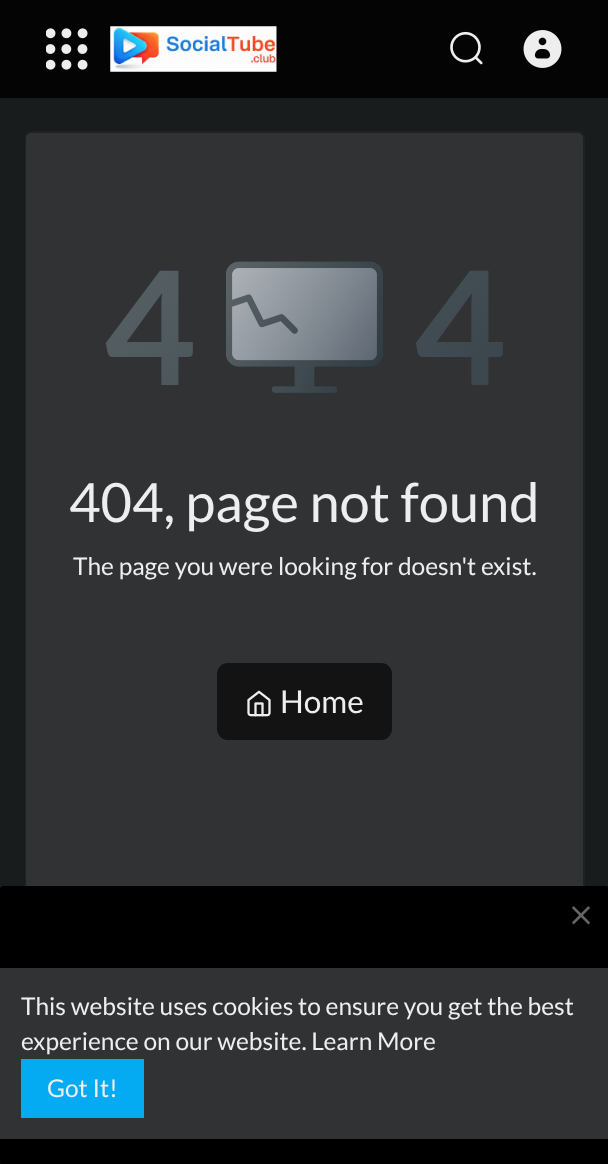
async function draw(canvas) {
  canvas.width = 608
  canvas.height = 1164
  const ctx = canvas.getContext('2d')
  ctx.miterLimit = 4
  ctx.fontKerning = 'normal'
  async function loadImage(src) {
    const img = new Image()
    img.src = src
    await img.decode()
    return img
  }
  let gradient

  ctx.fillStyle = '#191c1d'
  ctx.fillRect(0, 0, 608, 1164)
  ctx.fillStyle = '#050404'
  ctx.fillRect(0, 0, 608, 98)
  ctx.drawImage(await loadImage('image0.png'), 46, 28, 42, 42)
  ctx.drawImage(await loadImage('image1.png'), 110, 26, 167, 46)
  ctx.drawImage(await loadImage('image2.png'), 450, 31, 33, 34)
  ctx.drawImage(await loadImage('image3.png'), 523, 30, 39, 38)
  ctx.beginPath()
  ctx.roundRect(26, 132, 558, 784, 6)
  ctx.strokeStyle = '#212121'
  ctx.lineWidth = 2
  ctx.stroke()
  ctx.fillStyle = '#303233'
  ctx.beginPath()
  ctx.roundRect(26, 133, 557, 782, 5)
  ctx.fill()
  ctx.font = 'bold 158px Lato'
  gradient = ctx.createLinearGradient(157, 176, 452, 471)
  gradient.addColorStop(0, '#596368')
  gradient.addColorStop(1, '#38444a')
  ctx.fillStyle = gradient
  ctx.fillText('4', 104, 385)
  ctx.drawImage(await loadImage('image4.png'), 226, 261, 157, 132)
  ctx.fillText('4', 414, 385)
  ctx.font = '54.25px Lato'
  ctx.fillStyle = '#eee'
  ctx.fillText('404, page not found', 69, 522)
  ctx.font = '24.5px Lato'
  ctx.fillText('The page you were looking for doesn\'t exist.', 73, 575)
  ctx.fillStyle = '#131313'
  ctx.beginPath()
  ctx.roundRect(217, 663, 175, 77, 11)
  ctx.fill()
  ctx.drawImage(await loadImage('image5.png'), 247, 690, 24, 27)
  ctx.font = '31.5px Lato'
  ctx.fillStyle = '#eee'
  ctx.fillText('Home', 280, 713)
  ctx.fillStyle = '#000'
  ctx.beginPath()
  ctx.roundRect(0, 886, 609, 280, 4)
  ctx.fill()
  ctx.drawImage(await loadImage('image6.png'), 572, 906, 18, 19)
  ctx.fillStyle = '#303233'
  ctx.fillRect(0, 968, 608, 171)
  ctx.font = '24.5px Lato'
  ctx.fillStyle = '#eee'
  ctx.fillText('This website uses cookies to ensure you get the best', 21, 1015)
  ctx.fillText('experience on our website. Learn More', 21, 1050)
  ctx.fillStyle = '#04abf2'
  ctx.fillRect(21, 1059, 123, 59)
  ctx.fillStyle = '#eee'
  ctx.fillText('Got It!', 47, 1097)
}

draw(document.querySelector('canvas'))
